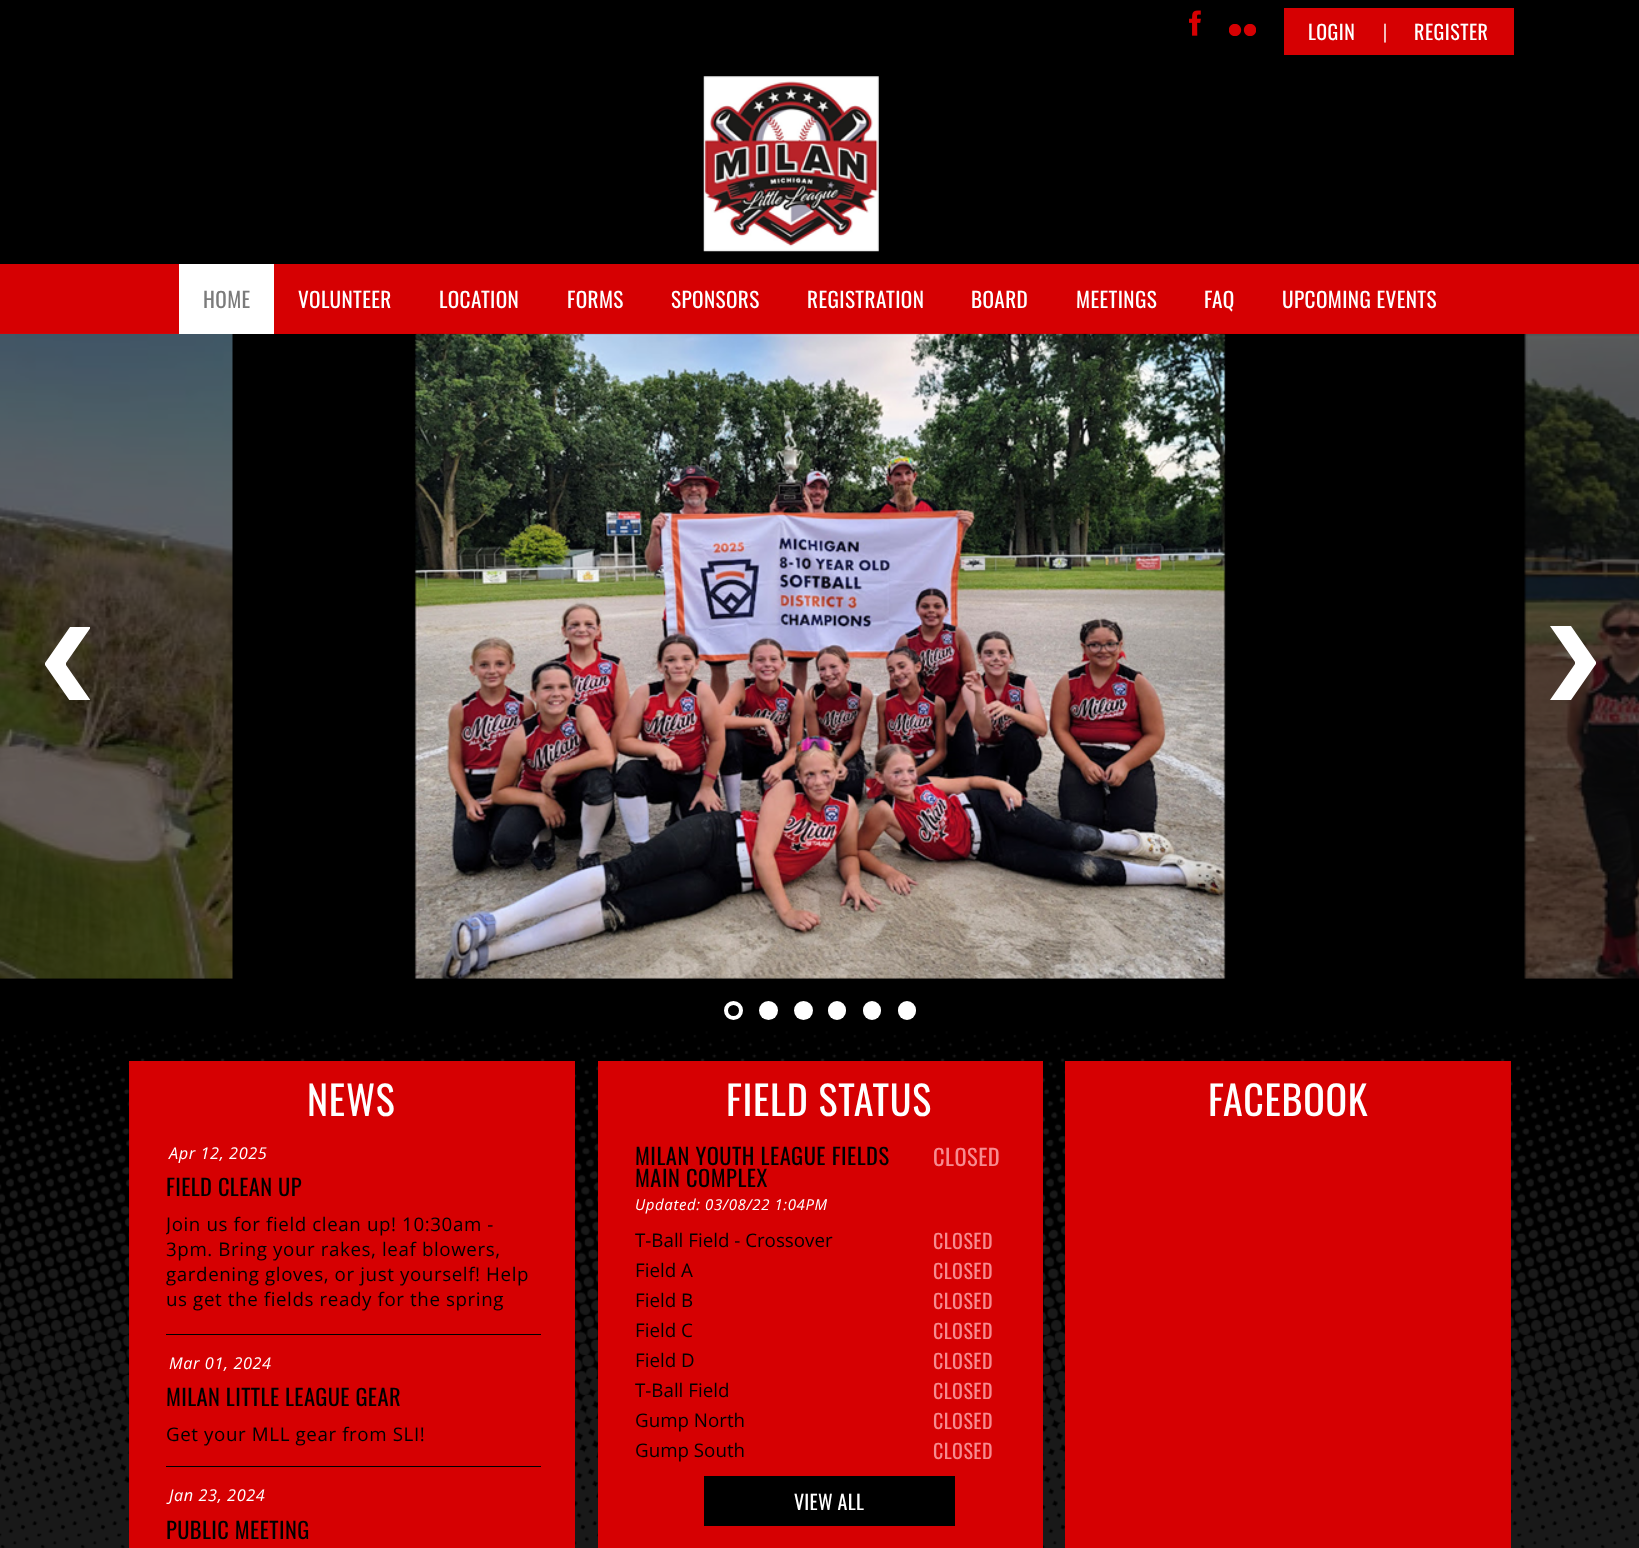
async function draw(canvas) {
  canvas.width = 1639
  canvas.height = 1548
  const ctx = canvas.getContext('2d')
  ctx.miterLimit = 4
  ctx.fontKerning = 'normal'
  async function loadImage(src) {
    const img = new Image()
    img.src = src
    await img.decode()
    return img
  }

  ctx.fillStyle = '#000'
  ctx.fillRect(0, 0, 1639, 1548)
  ctx.drawImage(await loadImage('image0.png'), 1189, 10, 12, 26)
  ctx.drawImage(await loadImage('image1.png'), 1229, 24, 27, 12)
  ctx.fillStyle = '#d60002'
  ctx.fillRect(1284, 8, 230, 47)
  ctx.letterSpacing = '0.5px'
  ctx.font = '20px Oswald'
  ctx.fillStyle = '#fff'
  ctx.fillText('LOGIN', 1308, 40)
  ctx.letterSpacing = '0px'
  ctx.font = '20px Lato'
  ctx.fillText('|', 1382, 39)
  ctx.letterSpacing = '0.5px'
  ctx.font = '20px Oswald'
  ctx.fillText('REGISTER', 1414, 40)
  ctx.drawImage(await loadImage('image2.png'), 703, 76, 176, 176)
  ctx.fillStyle = '#d60002'
  ctx.fillRect(0, 264, 1639, 70)
  ctx.drawImage(await loadImage('image4.png'), 0, 333, 233, 646)
  ctx.fillStyle = '#fff'
  ctx.fillRect(179, 264, 95, 70)
  ctx.letterSpacing = '0.4px'
  ctx.font = '21.25px Oswald'
  ctx.fillStyle = '#7b7b7b'
  ctx.fillText('HOME', 203, 308)
  ctx.fillStyle = '#fff'
  ctx.fillText('VOLUNTEER', 298, 308)
  ctx.fillText('LOCATION', 439, 308)
  ctx.fillText('FORMS', 567, 308)
  ctx.fillText('SPONSORS', 671, 308)
  ctx.fillText('REGISTRATION', 807, 308)
  ctx.fillText('BOARD', 971, 308)
  ctx.fillText('MEETINGS', 1076, 308)
  ctx.fillText('FAQ', 1204, 308)
  ctx.fillText('UPCOMING EVENTS', 1282, 308)
  ctx.drawImage(await loadImage('image3.png'), 0, 1031, 1639, 517)
  ctx.drawImage(await loadImage('image5.png'), 414, 333, 812, 646)
  ctx.drawImage(await loadImage('image6.png'), 1524, 333, 115, 646)
  ctx.save()
  ctx.beginPath()
  ctx.rect(44, 626, 46, 74)
  ctx.clip()
  ctx.beginPath()
  ctx.moveTo(91, 701)
  ctx.lineTo(70, 701)
  ctx.lineTo(45, 665)
  ctx.lineTo(45, 663)
  ctx.lineTo(70, 627)
  ctx.lineTo(91, 627)
  ctx.lineTo(66, 663)
  ctx.lineTo(66, 665)
  ctx.closePath()
  ctx.fill()
  ctx.restore()
  ctx.beginPath()
  ctx.moveTo(1550, 626)
  ctx.lineTo(1571, 626)
  ctx.lineTo(1596, 662)
  ctx.lineTo(1596, 664)
  ctx.lineTo(1571, 700)
  ctx.lineTo(1550, 700)
  ctx.lineTo(1575, 664)
  ctx.lineTo(1575, 662)
  ctx.closePath()
  ctx.fill()
  ctx.beginPath()
  ctx.arc(733.5, 1010.5, 7.5, 0, 2 * Math.PI)
  ctx.strokeStyle = '#fff'
  ctx.lineWidth = 4
  ctx.stroke()
  ctx.beginPath()
  ctx.arc(768.5, 1010.5, 9.5, 0, 2 * Math.PI)
  ctx.fill()
  ctx.beginPath()
  ctx.arc(803.5, 1010.5, 9.5, 0, 2 * Math.PI)
  ctx.fill()
  ctx.beginPath()
  ctx.roundRect(828, 1001, 18, 19, 9)
  ctx.fill()
  ctx.beginPath()
  ctx.roundRect(863, 1001, 18, 19, 9)
  ctx.fill()
  ctx.beginPath()
  ctx.roundRect(898, 1001, 18, 19, 9)
  ctx.fill()
  ctx.fillStyle = '#d60002'
  ctx.fillRect(129, 1061, 446, 487)
  ctx.letterSpacing = '0.75px'
  ctx.font = '40px Oswald'
  ctx.fillStyle = '#fff'
  ctx.fillText('NEWS', 307, 1116)
  ctx.fillStyle = '#000'
  ctx.fillRect(166, 1334, 375, 1)
  ctx.letterSpacing = '0.6px'
  ctx.font = 'italic 16.25px Open Sans'
  ctx.fillStyle = '#fff'
  ctx.fillText('Apr 12, 2025', 169, 1159)
  ctx.letterSpacing = '0.4px'
  ctx.font = '22.5px Oswald'
  ctx.fillStyle = '#000'
  ctx.fillText('FIELD CLEAN UP', 166, 1196)
  ctx.save()
  ctx.beginPath()
  ctx.rect(166, 1211, 375, 103)
  ctx.clip()
  ctx.letterSpacing = '0.6px'
  ctx.font = '18.75px Open Sans'
  ctx.fillText('Join us for field clean up! 10:30am -', 166, 1231)
  ctx.restore()
  ctx.letterSpacing = '0.6px'
  ctx.font = '18.75px Open Sans'
  ctx.fillText('3pm. Bring your rakes, leaf blowers,', 166, 1256)
  ctx.fillText('gardening gloves, or just yourself! Help', 166, 1281)
  ctx.fillText('us get the fields ready for the spring', 166, 1306)
  ctx.fillRect(166, 1466, 375, 1)
  ctx.font = 'italic 16.25px Open Sans'
  ctx.fillStyle = '#fff'
  ctx.fillText('Mar 01, 2024', 169, 1369)
  ctx.letterSpacing = '0.4px'
  ctx.font = '22.5px Oswald'
  ctx.fillStyle = '#000'
  ctx.fillText('MILAN LITTLE LEAGUE GEAR', 166, 1406)
  ctx.letterSpacing = '0.6px'
  ctx.font = '18.75px Open Sans'
  ctx.fillText('Get your MLL gear from SLI!', 166, 1441)
  ctx.font = 'italic 16.25px Open Sans'
  ctx.fillStyle = '#fff'
  ctx.fillText('Jan 23, 2024', 169, 1501)
  ctx.letterSpacing = '0.4px'
  ctx.font = '22.5px Oswald'
  ctx.fillStyle = '#000'
  ctx.fillText('PUBLIC MEETING', 166, 1539)
  ctx.fillStyle = '#d60002'
  ctx.fillRect(598, 1061, 445, 487)
  ctx.letterSpacing = '0.75px'
  ctx.font = '40px Oswald'
  ctx.fillStyle = '#fff'
  ctx.fillText('FIELD STATUS', 726, 1116)
  ctx.letterSpacing = '0.5px'
  ctx.font = '22.5px Oswald'
  ctx.fillStyle = '#000'
  ctx.fillText('MILAN YOUTH LEAGUE FIELDS', 635, 1165)
  ctx.fillText('MAIN COMPLEX', 635, 1187)
  ctx.fillStyle = '#f78b90'
  ctx.fillText('CLOSED', 933, 1166)
  ctx.letterSpacing = '0.6px'
  ctx.font = 'italic 15px Open Sans'
  ctx.fillStyle = '#fff'
  ctx.fillText('Updated: 03/08/22 1:04PM', 635, 1210)
  ctx.letterSpacing = '0px'
  ctx.font = '18.75px Open Sans'
  ctx.fillStyle = '#000'
  ctx.fillText('T-Ball Field - Crossover', 635, 1247)
  ctx.letterSpacing = '0.5px'
  ctx.font = '20px Oswald'
  ctx.fillStyle = '#f78b90'
  ctx.fillText('CLOSED', 933, 1249)
  ctx.letterSpacing = '0px'
  ctx.font = '18.75px Open Sans'
  ctx.fillStyle = '#000'
  ctx.fillText('Field A', 635, 1277)
  ctx.letterSpacing = '0.5px'
  ctx.font = '20px Oswald'
  ctx.fillStyle = '#f78b90'
  ctx.fillText('CLOSED', 933, 1279)
  ctx.letterSpacing = '0px'
  ctx.font = '18.75px Open Sans'
  ctx.fillStyle = '#000'
  ctx.fillText('Field B', 635, 1307)
  ctx.letterSpacing = '0.5px'
  ctx.font = '20px Oswald'
  ctx.fillStyle = '#f78b90'
  ctx.fillText('CLOSED', 933, 1309)
  ctx.letterSpacing = '0px'
  ctx.font = '18.75px Open Sans'
  ctx.fillStyle = '#000'
  ctx.fillText('Field C', 635, 1337)
  ctx.letterSpacing = '0.5px'
  ctx.font = '20px Oswald'
  ctx.fillStyle = '#f78b90'
  ctx.fillText('CLOSED', 933, 1339)
  ctx.letterSpacing = '0px'
  ctx.font = '18.75px Open Sans'
  ctx.fillStyle = '#000'
  ctx.fillText('Field D', 635, 1367)
  ctx.letterSpacing = '0.5px'
  ctx.font = '20px Oswald'
  ctx.fillStyle = '#f78b90'
  ctx.fillText('CLOSED', 933, 1369)
  ctx.letterSpacing = '0px'
  ctx.font = '18.75px Open Sans'
  ctx.fillStyle = '#000'
  ctx.fillText('T-Ball Field', 635, 1397)
  ctx.letterSpacing = '0.5px'
  ctx.font = '20px Oswald'
  ctx.fillStyle = '#f78b90'
  ctx.fillText('CLOSED', 933, 1399)
  ctx.letterSpacing = '0px'
  ctx.font = '18.75px Open Sans'
  ctx.fillStyle = '#000'
  ctx.fillText('Gump North', 635, 1427)
  ctx.letterSpacing = '0.5px'
  ctx.font = '20px Oswald'
  ctx.fillStyle = '#f78b90'
  ctx.fillText('CLOSED', 933, 1429)
  ctx.letterSpacing = '0px'
  ctx.font = '18.75px Open Sans'
  ctx.fillStyle = '#000'
  ctx.fillText('Gump South', 635, 1457)
  ctx.letterSpacing = '0.5px'
  ctx.font = '20px Oswald'
  ctx.fillStyle = '#f78b90'
  ctx.fillText('CLOSED', 933, 1459)
  ctx.fillStyle = '#000'
  ctx.fillRect(704, 1476, 251, 50)
  ctx.letterSpacing = '0.25px'
  ctx.fillStyle = '#fff'
  ctx.fillText('VIEW ALL', 794, 1510)
  ctx.fillStyle = '#d60002'
  ctx.fillRect(1065, 1061, 446, 487)
  ctx.letterSpacing = '0.75px'
  ctx.font = '40px Oswald'
  ctx.fillStyle = '#fff'
  ctx.fillText('FACEBOOK', 1208, 1116)
}

draw(document.querySelector('canvas'))
